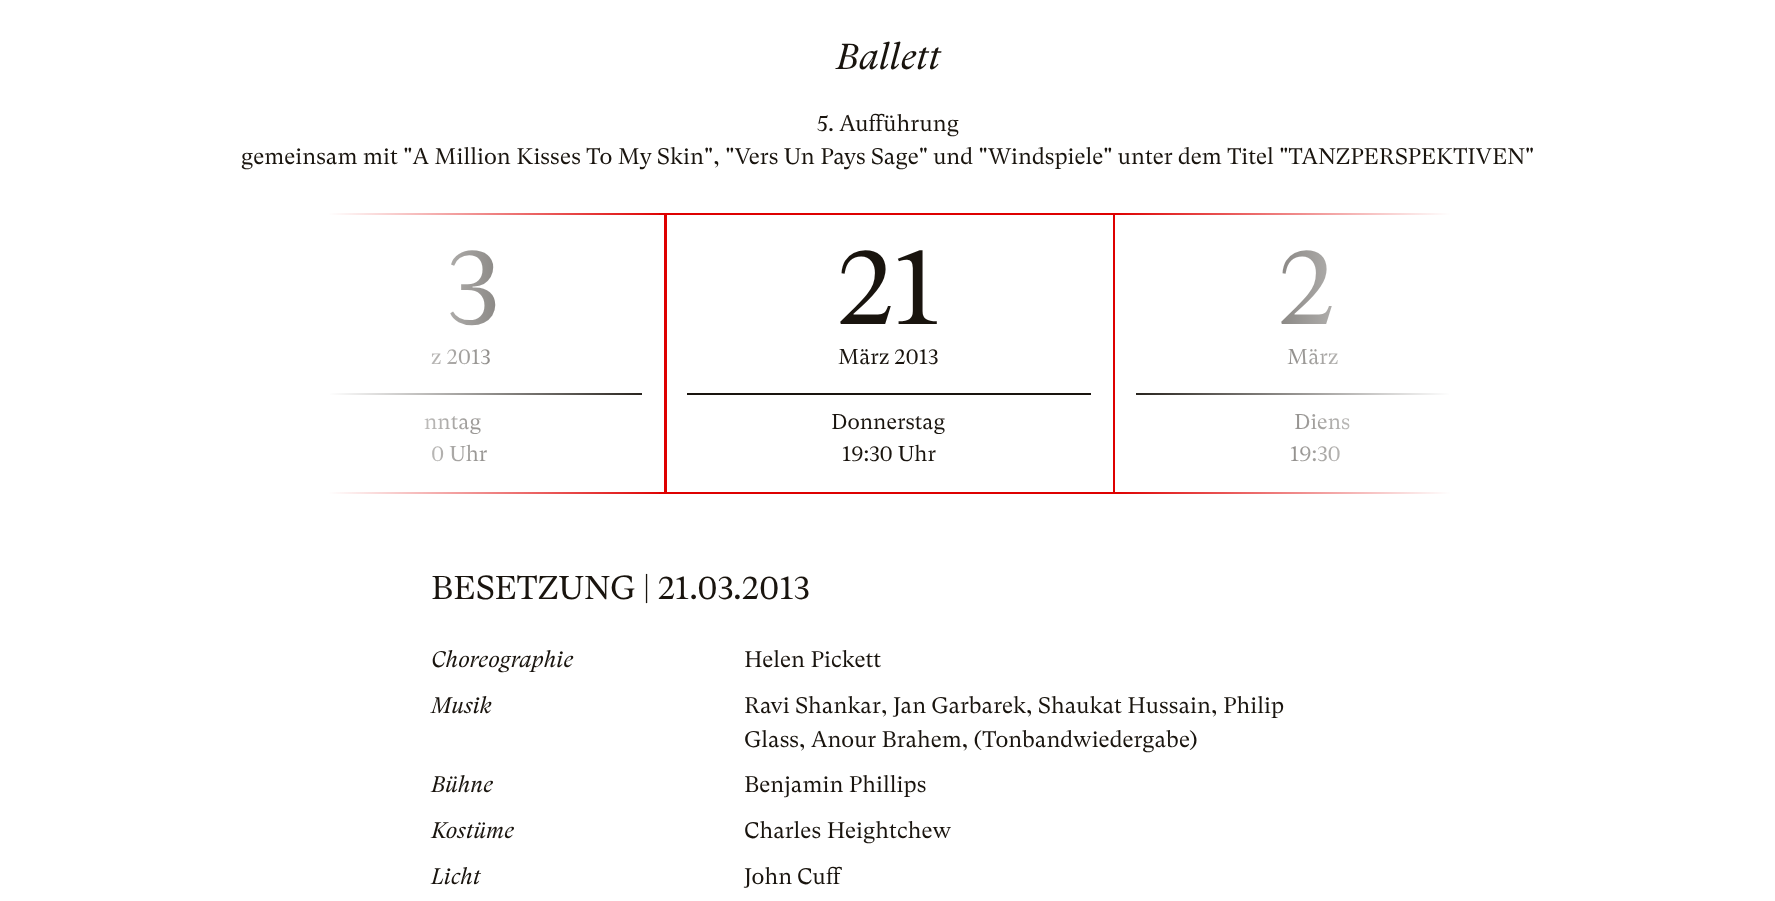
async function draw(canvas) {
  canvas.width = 1775
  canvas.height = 901
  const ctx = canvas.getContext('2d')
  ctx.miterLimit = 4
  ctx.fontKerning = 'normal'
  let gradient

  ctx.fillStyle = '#fff'
  ctx.fillRect(0, 0, 1775, 901)
  ctx.font = 'italic 36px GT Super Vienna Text'
  ctx.fillStyle = '#19140e'
  ctx.fillText('Ballett', 836, 69)
  ctx.font = '22.5px GT Super Vienna Text'
  ctx.fillText('5. Aufführung', 817, 131)
  ctx.fillText('gemeinsam mit "A Million Kisses To My Skin", "Vers Un Pays Sage" und "Windspiele" unter dem Titel "TANZPERSPEKTIVEN"', 241, 164)
  ctx.strokeStyle = '#de0000'
  ctx.lineWidth = 2
  ctx.strokeRect(217, 214, 448, 279)
  ctx.font = '108px GT Super Vienna Text'
  ctx.fillText('3', 447, 324)
  ctx.fillRect(330, 393, 312, 2)
  ctx.font = '21.5px GT Super Vienna Text'
  ctx.fillText('z 2013', 431, 364)
  ctx.fillText('nntag', 424, 429)
  ctx.fillText('0 Uhr', 431, 461)
  gradient = ctx.createLinearGradient(216, 353, 666, 353)
  gradient.addColorStop(0.25, '#fff')
  gradient.addColorStop(1, '#ffffff00')
  ctx.fillStyle = gradient
  ctx.fillRect(216, 213, 443, 281)
  ctx.strokeRect(666, 214, 448, 279)
  ctx.font = '108px GT Super Vienna Text'
  ctx.fillStyle = '#19140e'
  ctx.fillText('21', 837, 324)
  ctx.fillRect(687, 393, 404, 2)
  ctx.font = '21.5px GT Super Vienna Text'
  ctx.fillText('März 2013', 838, 364)
  ctx.fillText('Donnerstag', 831, 429)
  ctx.fillText('19:30 Uhr', 842, 461)
  ctx.strokeRect(1114, 214, 448, 279)
  ctx.font = '108px GT Super Vienna Text'
  ctx.fillText('2', 1278, 324)
  ctx.fillRect(1136, 393, 313, 2)
  ctx.font = '21.5px GT Super Vienna Text'
  ctx.fillText('März', 1287, 364)
  ctx.fillText('Diens', 1294, 429)
  ctx.fillText('19:30', 1290, 461)
  gradient = ctx.createLinearGradient(1563, 353, 1113, 353)
  gradient.addColorStop(0.25, '#fff')
  gradient.addColorStop(1, '#ffffff00')
  ctx.fillStyle = gradient
  ctx.fillRect(1120, 213, 443, 281)
  ctx.font = '33px GT Super Vienna Text'
  ctx.fillStyle = '#19140e'
  ctx.fillText('BESETZUNG | 21.03.2013', 431, 599)
  ctx.font = 'italic 22.5px GT Super Vienna Text'
  ctx.fillText('Choreographie', 431, 667)
  ctx.font = '22.5px GT Super Vienna Text'
  ctx.fillText('Helen Pickett', 744, 667)
  ctx.font = 'italic 22.5px GT Super Vienna Text'
  ctx.fillText('Musik', 431, 713)
  ctx.font = '22.5px GT Super Vienna Text'
  ctx.fillText('Ravi Shankar', 744, 713)
  ctx.fillText(', Jan Garbarek, Shaukat Hussain, Philip', 881, 713)
  ctx.fillText('Glass, Anour Brahem, (Tonbandwiedergabe)', 744, 747)
  ctx.font = 'italic 22.5px GT Super Vienna Text'
  ctx.fillText('Bühne', 431, 792)
  ctx.font = '22.5px GT Super Vienna Text'
  ctx.fillText('Benjamin Phillips', 744, 792)
  ctx.font = 'italic 22.5px GT Super Vienna Text'
  ctx.fillText('Kostüme', 431, 838)
  ctx.font = '22.5px GT Super Vienna Text'
  ctx.fillText('Charles Heightchew', 744, 838)
  ctx.font = 'italic 22.5px GT Super Vienna Text'
  ctx.fillText('Licht', 431, 884)
  ctx.font = '22.5px GT Super Vienna Text'
  ctx.fillText('John Cuff', 744, 884)
}

draw(document.querySelector('canvas'))
